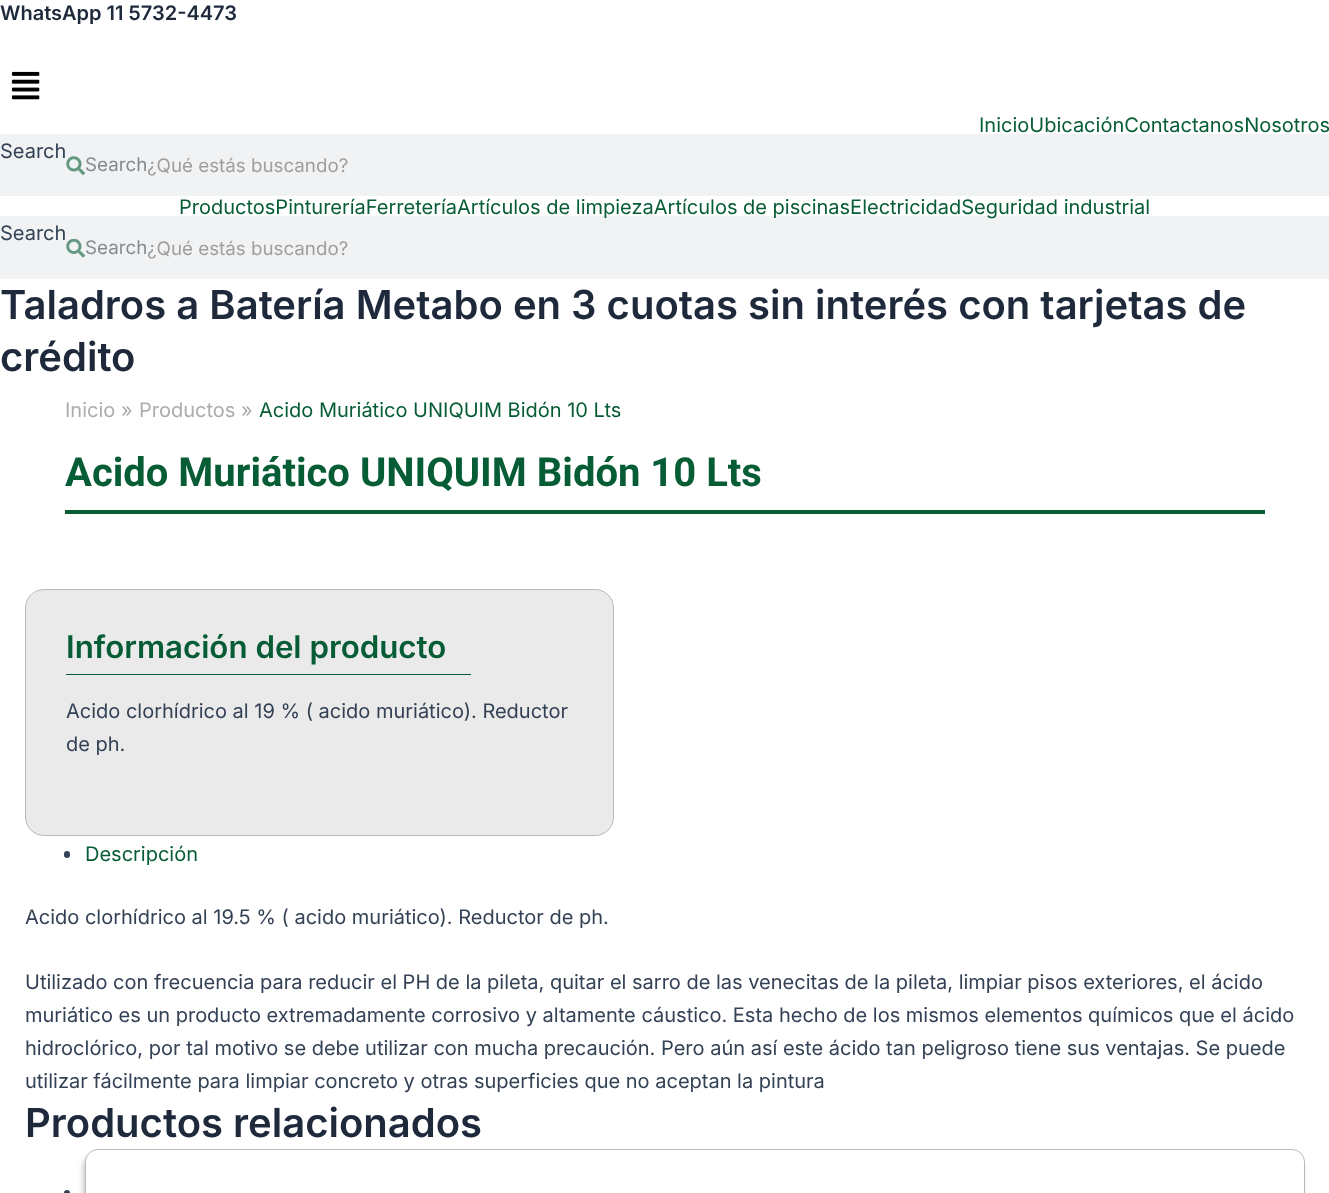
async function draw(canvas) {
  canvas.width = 1329
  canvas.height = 1193
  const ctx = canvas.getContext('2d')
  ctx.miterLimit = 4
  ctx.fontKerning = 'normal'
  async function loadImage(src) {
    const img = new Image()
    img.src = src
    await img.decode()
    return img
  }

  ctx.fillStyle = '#fff'
  ctx.fillRect(0, 0, 1329, 1193)
  ctx.font = '600 20px Inter'
  ctx.fillStyle = '#1e293b'
  ctx.fillText('WhatsApp 11 5732-4473', 0, 20)
  ctx.drawImage(await loadImage('image0.png'), 11, 71, 29, 29)
  ctx.font = '20px Inter'
  ctx.fillStyle = '#065c34'
  ctx.fillText('InicioUbicaciónContactanosNosotros', 979, 132)
  ctx.fillStyle = '#f1f2f3'
  ctx.fillRect(0, 134, 1329, 62)
  ctx.fillStyle = '#334155'
  ctx.fillText('Search', 0, 158)
  ctx.drawImage(await loadImage('image1.png'), 66, 156, 19, 19)
  ctx.font = '18.75px Inter'
  ctx.fillStyle = '#868a8e'
  ctx.fillText('Search', 85, 171)
  ctx.fillStyle = '#9e9e9e'
  ctx.fillText('¿Qué estás buscando?', 147, 172)
  ctx.fillStyle = '#f1f2f3'
  ctx.fillRect(0, 216, 1329, 63)
  ctx.font = '20px Inter'
  ctx.fillStyle = '#065c34'
  ctx.fillText('ProductosPintureríaFerreteríaArtículos de limpiezaArtículos de piscinasElectricidadSeguridad industrial', 179, 214)
  ctx.fillStyle = '#334155'
  ctx.fillText('Search', 0, 240)
  ctx.drawImage(await loadImage('image2.png'), 66, 239, 19, 19)
  ctx.font = '18.75px Inter'
  ctx.fillStyle = '#868a8e'
  ctx.fillText('Search', 85, 254)
  ctx.fillStyle = '#9e9e9e'
  ctx.fillText('¿Qué estás buscando?', 147, 255)
  ctx.font = '600 40px Inter'
  ctx.fillStyle = '#1e293b'
  ctx.fillText('Taladros a Batería Metabo en 3 cuotas sin interés con tarjetas de', 0, 319)
  ctx.fillText('crédito', 0, 371)
  ctx.font = '20px Inter'
  ctx.fillStyle = '#acacac'
  ctx.fillText('Inicio', 65, 417)
  ctx.fillText('»', 121, 417)
  ctx.fillText('Productos', 139, 417)
  ctx.fillText('»', 241, 417)
  ctx.fillStyle = '#065c34'
  ctx.fillText('Acido Muriático UNIQUIM Bidón 10 Lts', 259, 417)
  ctx.fillRect(65, 510, 1200, 4)
  ctx.font = 'bold 40px Roboto'
  ctx.fillText('Acido Muriático UNIQUIM Bidón 10 Lts', 65, 486)
  ctx.fillStyle = '#eaeaea'
  ctx.beginPath()
  ctx.roundRect(25.5, 589.5, 588, 246, 18.5)
  ctx.fill()
  ctx.strokeStyle = '#bbbaba'
  ctx.stroke()
  ctx.fillStyle = '#065c34'
  ctx.fillRect(66, 674, 405, 1)
  ctx.font = '600 31.25px Inter'
  ctx.fillText('Información del producto', 66, 658)
  ctx.font = '20px Inter'
  ctx.fillStyle = '#334155'
  ctx.fillText('Acido clorhídrico al 19 % ( acido muriático). Reductor', 66, 718)
  ctx.fillText('de ph.', 66, 751)
  ctx.beginPath()
  ctx.roundRect(64, 851, 6, 7, 3)
  ctx.fill()
  ctx.fillStyle = '#065c34'
  ctx.fillText('Descripción', 85, 861)
  ctx.fillStyle = '#334155'
  ctx.fillText('Acido clorhídrico al 19.5 % ( acido muriático). Reductor de ph.', 25, 924)
  ctx.fillText('Utilizado con frecuencia para reducir el PH de la pileta, quitar el sarro de las venecitas de la pileta, limpiar pisos exteriores, el ácido', 25, 989)
  ctx.fillText('muriático es un producto extremadamente corrosivo y altamente cáustico. Esta hecho de los mismos elementos químicos que el ácido', 25, 1022)
  ctx.fillText('hidroclórico, por tal motivo se debe utilizar con mucha precaución. Pero aún así este ácido tan peligroso tiene sus ventajas. Se puede', 25, 1055)
  ctx.fillText('utilizar fácilmente para limpiar concreto y otras superficies que no aceptan la pintura', 25, 1088)
  ctx.font = '600 40px Inter'
  ctx.fillStyle = '#1e293b'
  ctx.fillText('Productos relacionados', 25, 1137)
  ctx.save()
  ctx.beginPath()
  ctx.moveTo(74, 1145)
  ctx.lineTo(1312, 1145)
  ctx.lineTo(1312, 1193)
  ctx.lineTo(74, 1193)
  ctx.closePath()
  ctx.moveTo(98, 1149)
  ctx.lineTo(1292, 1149)
  ctx.bezierCurveTo(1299, 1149, 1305, 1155, 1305, 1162)
  ctx.lineTo(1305, 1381)
  ctx.bezierCurveTo(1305, 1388, 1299, 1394, 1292, 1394)
  ctx.lineTo(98, 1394)
  ctx.bezierCurveTo(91, 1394, 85, 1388, 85, 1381)
  ctx.lineTo(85, 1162)
  ctx.bezierCurveTo(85, 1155, 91, 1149, 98, 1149)
  ctx.closePath()
  ctx.clip('evenodd')
  ctx.fillStyle = '#cac4c4f2'
  ctx.filter = 'blur(2.5px)'
  ctx.beginPath()
  ctx.roundRect(83, 1154, 1220, 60, 13)
  ctx.fill()
  ctx.filter = 'none'
  ctx.restore()
  ctx.beginPath()
  ctx.roundRect(85.5, 1149.5, 1219, 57, 12.5)
  ctx.stroke()
  ctx.fillStyle = '#334155'
  ctx.beginPath()
  ctx.arc(67, 1193, 3, 0, 2 * Math.PI)
  ctx.fill()
}

draw(document.querySelector('canvas'))
